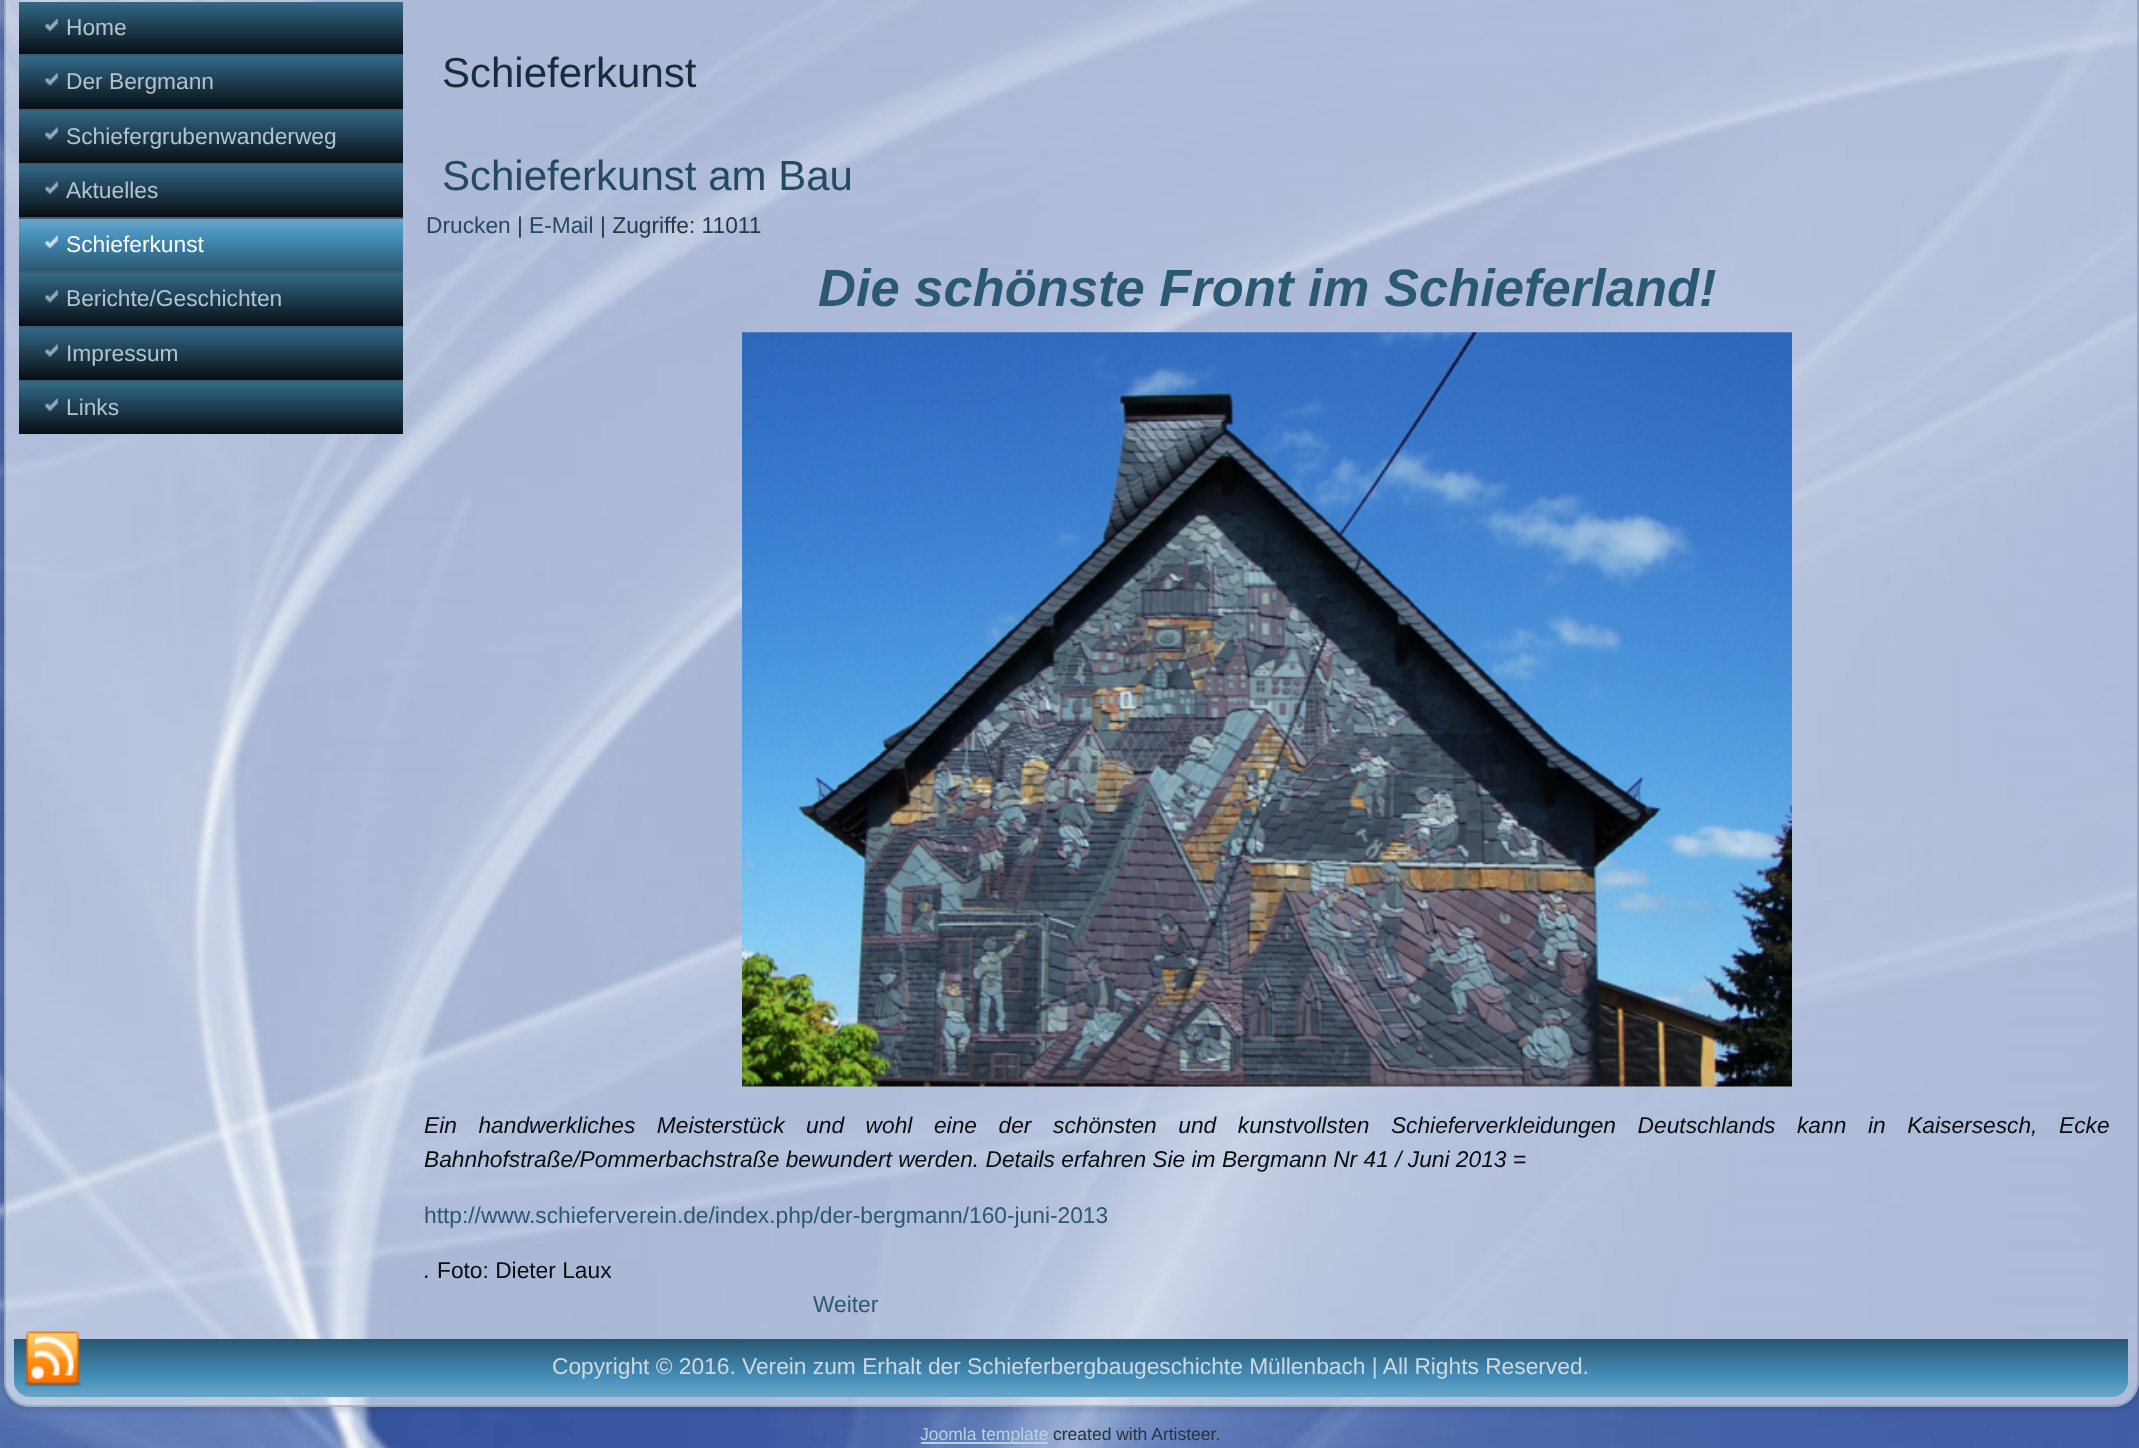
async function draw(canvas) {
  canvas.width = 2139
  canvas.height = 1448
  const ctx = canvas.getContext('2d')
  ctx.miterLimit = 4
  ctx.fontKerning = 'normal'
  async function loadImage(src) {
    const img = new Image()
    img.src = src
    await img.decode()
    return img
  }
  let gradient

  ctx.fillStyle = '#fff'
  ctx.fillRect(0, 0, 2139, 1448)
  ctx.drawImage(await loadImage('image0.png'), 0, 0, 2139, 1448)
  ctx.save()
  ctx.beginPath()
  ctx.moveTo(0, 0)
  ctx.lineTo(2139, 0)
  ctx.lineTo(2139, 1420)
  ctx.lineTo(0, 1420)
  ctx.closePath()
  ctx.moveTo(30, -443)
  ctx.lineTo(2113, -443)
  ctx.bezierCurveTo(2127.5, -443, 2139, -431.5, 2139, -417)
  ctx.lineTo(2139, 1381)
  ctx.bezierCurveTo(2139, 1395.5, 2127.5, 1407, 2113, 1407)
  ctx.lineTo(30, 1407)
  ctx.bezierCurveTo(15.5, 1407, 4, 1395.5, 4, 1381)
  ctx.lineTo(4, -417)
  ctx.bezierCurveTo(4, -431.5, 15.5, -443, 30, -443)
  ctx.closePath()
  ctx.clip('evenodd')
  ctx.fillStyle = '#00000017'
  ctx.filter = 'blur(2.5px)'
  ctx.beginPath()
  ctx.roundRect(0, -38, 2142, 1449, 30)
  ctx.fill()
  ctx.filter = 'none'
  ctx.restore()
  ctx.fillStyle = '#f9fafb99'
  ctx.beginPath()
  ctx.roundRect(4, -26, 2135, 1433, 26)
  ctx.fill()
  ctx.beginPath()
  ctx.roundRect(5, -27, 2133, 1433, 25)
  ctx.strokeStyle = '#8099b399'
  ctx.lineWidth = 2
  ctx.stroke()
  gradient = ctx.createLinearGradient(211, 1.7, 211, 54)
  gradient.addColorStop(0, '#336a8a')
  gradient.addColorStop(1, '#070e13')
  ctx.fillStyle = gradient
  ctx.fillRect(19, 2, 384, 52)
  ctx.drawImage(await loadImage('image1.png'), 45, 19, 13, 13)
  ctx.font = '22.75px Liberation Sans'
  ctx.fillStyle = '#b2c2d1'
  ctx.fillText('Home', 66, 35)
  ctx.fillStyle = '#435970'
  ctx.fillRect(19, 54, 384, 2)
  gradient = ctx.createLinearGradient(211, 56, 211, 109)
  gradient.addColorStop(0, '#336a8a')
  gradient.addColorStop(1, '#070e13')
  ctx.fillStyle = gradient
  ctx.fillRect(19, 56, 384, 53)
  ctx.drawImage(await loadImage('image2.png'), 45, 73, 13, 13)
  ctx.fillStyle = '#b2c2d1'
  ctx.fillText('Der Bergmann', 66, 89)
  ctx.fillStyle = '#435970'
  ctx.fillRect(19, 109, 384, 2)
  gradient = ctx.createLinearGradient(211, 110, 211, 163)
  gradient.addColorStop(0, '#336a8a')
  gradient.addColorStop(1, '#070e13')
  ctx.fillStyle = gradient
  ctx.fillRect(19, 111, 384, 52)
  ctx.drawImage(await loadImage('image3.png'), 45, 127, 13, 13)
  ctx.fillStyle = '#b2c2d1'
  ctx.fillText('Schiefergrubenwanderweg', 66, 144)
  ctx.fillStyle = '#435970'
  ctx.fillRect(19, 163, 384, 2)
  gradient = ctx.createLinearGradient(211, 164, 211, 217)
  gradient.addColorStop(0, '#336a8a')
  gradient.addColorStop(1, '#070e13')
  ctx.fillStyle = gradient
  ctx.fillRect(19, 165, 384, 52)
  ctx.drawImage(await loadImage('image4.png'), 45, 181, 13, 13)
  ctx.fillStyle = '#b2c2d1'
  ctx.fillText('Aktuelles', 66, 198)
  ctx.fillStyle = '#435970'
  ctx.fillRect(19, 217, 384, 2)
  gradient = ctx.createLinearGradient(211, 219, 211, 271)
  gradient.addColorStop(0, '#6aa6c8')
  gradient.addColorStop(0.33, '#458fba')
  gradient.addColorStop(1, '#295670')
  ctx.fillStyle = gradient
  ctx.fillRect(19, 219, 384, 52)
  ctx.drawImage(await loadImage('image5.png'), 45, 236, 13, 13)
  ctx.fillStyle = '#fcfcfd'
  ctx.fillText('Schieferkunst', 66, 252)
  ctx.fillStyle = '#435970'
  ctx.fillRect(19, 271, 384, 2)
  gradient = ctx.createLinearGradient(211, 273, 211, 326)
  gradient.addColorStop(0, '#336a8a')
  gradient.addColorStop(1, '#070e13')
  ctx.fillStyle = gradient
  ctx.fillRect(19, 273, 384, 53)
  ctx.drawImage(await loadImage('image2.png'), 45, 290, 13, 13)
  ctx.fillStyle = '#b2c2d1'
  ctx.fillText('Berichte/Geschichten', 66, 306)
  ctx.fillStyle = '#435970'
  ctx.fillRect(19, 326, 384, 2)
  gradient = ctx.createLinearGradient(211, 327, 211, 380)
  gradient.addColorStop(0, '#336a8a')
  gradient.addColorStop(1, '#070e13')
  ctx.fillStyle = gradient
  ctx.fillRect(19, 328, 384, 52)
  ctx.drawImage(await loadImage('image3.png'), 45, 344, 13, 13)
  ctx.fillStyle = '#b2c2d1'
  ctx.fillText('Impressum', 66, 361)
  ctx.fillStyle = '#435970'
  ctx.fillRect(19, 380, 384, 2)
  gradient = ctx.createLinearGradient(211, 382, 211, 434)
  gradient.addColorStop(0, '#336a8a')
  gradient.addColorStop(1, '#070e13')
  ctx.fillStyle = gradient
  ctx.fillRect(19, 382, 384, 52)
  ctx.drawImage(await loadImage('image6.png'), 45, 398, 13, 13)
  ctx.fillStyle = '#b2c2d1'
  ctx.fillText('Links', 66, 415)
  ctx.font = '42px Liberation Sans'
  ctx.fillStyle = '#162e3c'
  ctx.fillText('Schieferkunst', 442, 87)
  ctx.fillStyle = '#244a61'
  ctx.fillText('Schieferkunst am Bau', 442, 190)
  ctx.font = '22.75px Liberation Sans'
  ctx.fillText('Drucken', 426, 233)
  ctx.fillStyle = '#2a3846'
  ctx.fillText('|', 517, 233)
  ctx.fillStyle = '#244a61'
  ctx.fillText('E-Mail', 529, 233)
  ctx.fillStyle = '#2a3846'
  ctx.fillText('| Zugriffe: 11011', 600, 233)
  ctx.font = 'italic bold 52.5px Liberation Sans'
  ctx.fillStyle = '#2b5973'
  ctx.fillText('Die schönste Front im Schieferland!', 818, 306)
  ctx.drawImage(await loadImage('image7.png'), 742, 332, 1050, 755)
  ctx.wordSpacing = '15.25px'
  ctx.font = 'italic 22.75px Liberation Sans'
  ctx.fillStyle = '#0a0d10'
  ctx.fillText('Ein handwerkliches Meisterstück und wohl eine der schönsten und kunstvollsten Schieferverkleidungen Deutschlands kann in Kaisersesch, Ecke', 424, 1133)
  ctx.wordSpacing = '0px'
  ctx.fillText('Bahnhofstraße/Pommerbachstraße bewundert werden. Details erfahren Sie im Bergmann Nr 41 / Juni 2013 =', 424, 1167)
  ctx.font = '22.75px Liberation Sans'
  ctx.fillStyle = '#2b5973'
  ctx.fillText('http://www.schieferverein.de/index.php/der-bergmann/160-juni-2013', 424, 1223)
  ctx.font = 'italic 22.75px Liberation Sans'
  ctx.fillStyle = '#0a0d10'
  ctx.fillText('.', 424, 1278)
  ctx.font = '22.75px Liberation Sans'
  ctx.fillText('Foto: Dieter Laux', 437, 1278)
  ctx.fillStyle = '#2b5973'
  ctx.fillText('Weiter', 813, 1312)
  gradient = ctx.createLinearGradient(1071, 1339, 1071, 1397)
  gradient.addColorStop(0, '#295670')
  gradient.addColorStop(0.67, '#458fba')
  gradient.addColorStop(1, '#6aa6c8')
  ctx.fillStyle = gradient
  ctx.beginPath()
  ctx.roundRect(14, 1339, 2114, 58, [0, 0, 16, 16])
  ctx.fill()
  ctx.drawImage(await loadImage('image8.png'), 24, 1331, 57, 56)
  ctx.fillStyle = '#cfd9e2'
  ctx.fillText('Copyright © 2016. Verein zum Erhalt der Schieferbergbaugeschichte Müllenbach | All Rights Reserved.', 552, 1374)
  ctx.fillStyle = '#b5d2e3'
  ctx.fillRect(921, 1442, 127, 2)
  ctx.font = '17.5px Liberation Sans'
  ctx.fillText('Joomla template', 920, 1440)
  ctx.fillStyle = '#263340'
  ctx.fillText('created with Artisteer.', 1053, 1440)
}

draw(document.querySelector('canvas'))
